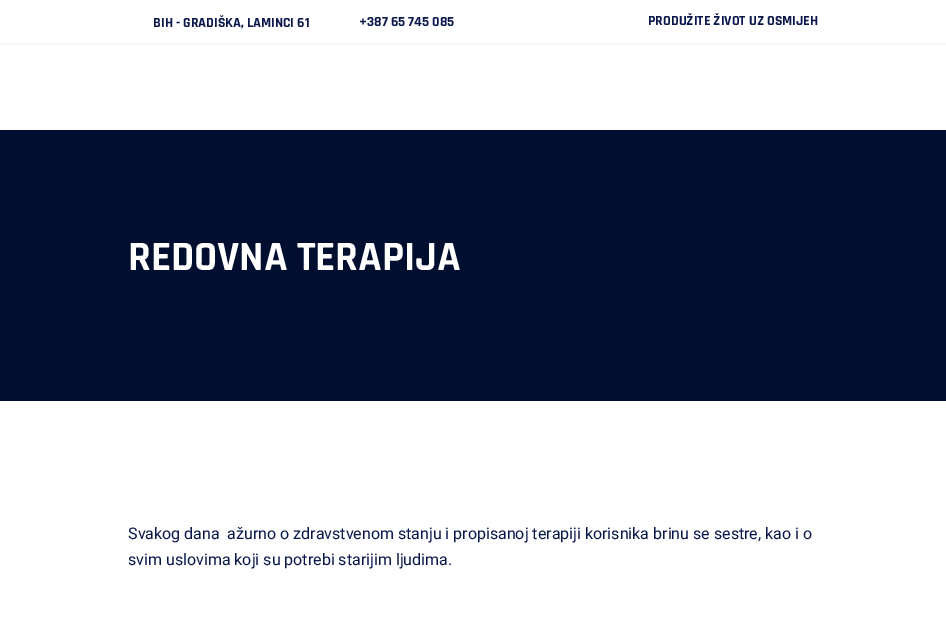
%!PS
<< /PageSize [946 638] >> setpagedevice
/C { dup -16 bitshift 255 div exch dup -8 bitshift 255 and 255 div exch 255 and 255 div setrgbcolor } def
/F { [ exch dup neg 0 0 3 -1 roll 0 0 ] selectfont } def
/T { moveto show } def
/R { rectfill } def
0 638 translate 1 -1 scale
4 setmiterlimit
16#FFFFFF C
0 0 946 638 R
16#F6F7FA C
0 43 946 2 R
/Rajdhani-Bold 14 F
16#0A174C C
(BIH - GRADIŠKA, LAMINCI 61) 153 27 T
(+387 65 745 085) 359 26 T
(PRODUŽITE ŽIVOT UZ OSMIJEH) 648 25 T
16#000E30 C
0 130 946 271 R
/Rajdhani-Bold 42 F
16#FFFFFF C
(REDOVNA TERAPIJA) 128 270 T
/Roboto-Regular 16 F
16#0A174C C
(Svakog dana  ažurno o zdravstvenom stanju i propisanoj terapiji korisnika brinu se sestre, kao i o) 128 539 T
(svim uslovima koji su potrebi starijim ljudima.) 128 565 T
showpage
